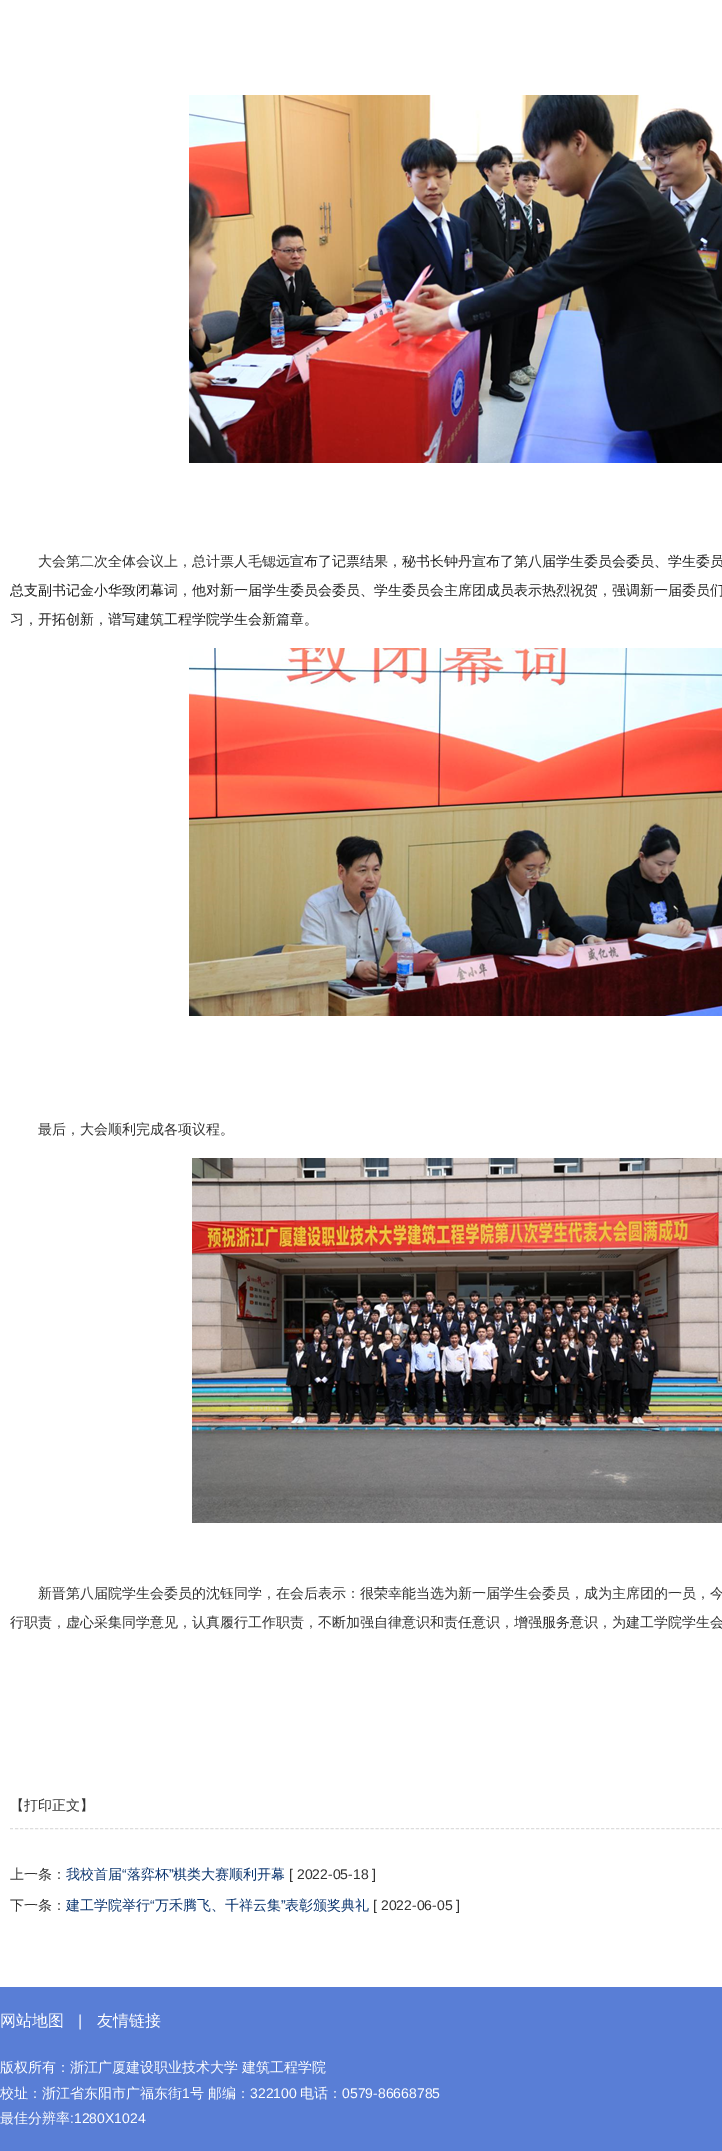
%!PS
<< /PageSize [722 2151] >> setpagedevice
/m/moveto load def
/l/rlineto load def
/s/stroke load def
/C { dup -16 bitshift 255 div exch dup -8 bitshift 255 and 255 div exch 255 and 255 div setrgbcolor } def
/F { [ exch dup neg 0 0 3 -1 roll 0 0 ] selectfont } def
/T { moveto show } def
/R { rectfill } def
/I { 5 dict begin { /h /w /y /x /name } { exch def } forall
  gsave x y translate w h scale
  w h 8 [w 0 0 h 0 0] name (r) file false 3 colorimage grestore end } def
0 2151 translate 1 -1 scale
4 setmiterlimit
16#FFFFFF C
0 0 722 2151 R
(1.rgb) 189 95 533 368 I
/WenQuanYiZenHei-Medium 14 F
16#333333 C
(大会第二次全体会议上，总计票人毛锶远) 38 566 T
16#222222 C
(宣布了记票结果，秘书长钟丹宣布了第八届学生委员会委员、学生委员) 290 566 T
(总支副书记金小华致闭幕词，他对新一届学生委员会委员、学生委员会主席团成员表示热烈祝贺，强调新一届委员们) 10 595 T
(习，开拓创新，谱写建筑工程学院学生会新篇章。) 10 624 T
(2.rgb) 189 648 533 368 I
16#333333 C
(最后，大会顺利完成各项议程。) 38 1134 T
(3.rgb) 192 1158 530 365 I
(新晋第八届院学生会委员的沈钰同学，在会后表示：很荣幸能当选为新一届学生会委员，成为主席团的一员，今) 38 1598 T
(行职责，虚心采集同学意见，认真履行工作职责，不断加强自律意识和责任意识，增强服务意识，为建工学院学生会) 10 1627 T
16#DDDDDD C
[3 2.01] 0 setdash
10 1828.5 m 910 0 l s
16#333333 C
(【打印正文】) 10 1810 T
(上一条：) 10 1879 T
16#0B356F C
(我校首届) 66 1879 T
/LiberationSans-Regular 14 F
(“) 122 1879 T
/WenQuanYiZenHei-Medium 14 F
(落弈杯) 127 1879 T
/LiberationSans-Regular 14 F
(”) 169 1879 T
/WenQuanYiZenHei-Medium 14 F
(棋类大赛顺利开幕) 173 1879 T
/LiberationSans-Regular 14 F
16#333333 C
([ 2022-05-18 ]) 289 1879 T
/WenQuanYiZenHei-Medium 14 F
(下一条：) 10 1910 T
16#0B356F C
(建工学院举行) 66 1910 T
/LiberationSans-Regular 14 F
(“) 150 1910 T
/WenQuanYiZenHei-Medium 14 F
(万禾腾飞、千祥云集) 155 1910 T
/LiberationSans-Regular 14 F
(”) 281 1910 T
/WenQuanYiZenHei-Medium 14 F
(表彰颁奖典礼) 285 1910 T
/LiberationSans-Regular 14 F
16#333333 C
([ 2022-06-05 ]) 373 1910 T
16#597ED6 C
0 1987 722 164 R
/WenQuanYiZenHei-Medium 16 F
16#FFFFFF C
(网站地图) 0 2026 T
/LiberationSans-Regular 16 F
(|) 78 2026 T
/WenQuanYiZenHei-Medium 16 F
(友情链接) 97 2026 T
/WenQuanYiZenHei-Medium 14 F
(版权所有：浙江广厦建设职业技术大学 建筑工程学院) 0 2072 T
(校址：浙江省东阳市广福东街) 0 2098 T
/LiberationSans-Regular 14 F
(1) 182 2098 T
/WenQuanYiZenHei-Medium 14 F
(号 邮编：) 190 2098 T
/LiberationSans-Regular 14 F
(322100) 250 2098 T
/WenQuanYiZenHei-Medium 14 F
(电话：) 300 2098 T
/LiberationSans-Regular 14 F
(0579-86668785) 342 2098 T
/WenQuanYiZenHei-Medium 14 F
(最佳分辨率) 0 2123 T
/LiberationSans-Regular 14 F
(:1280X1024) 70 2123 T
showpage
